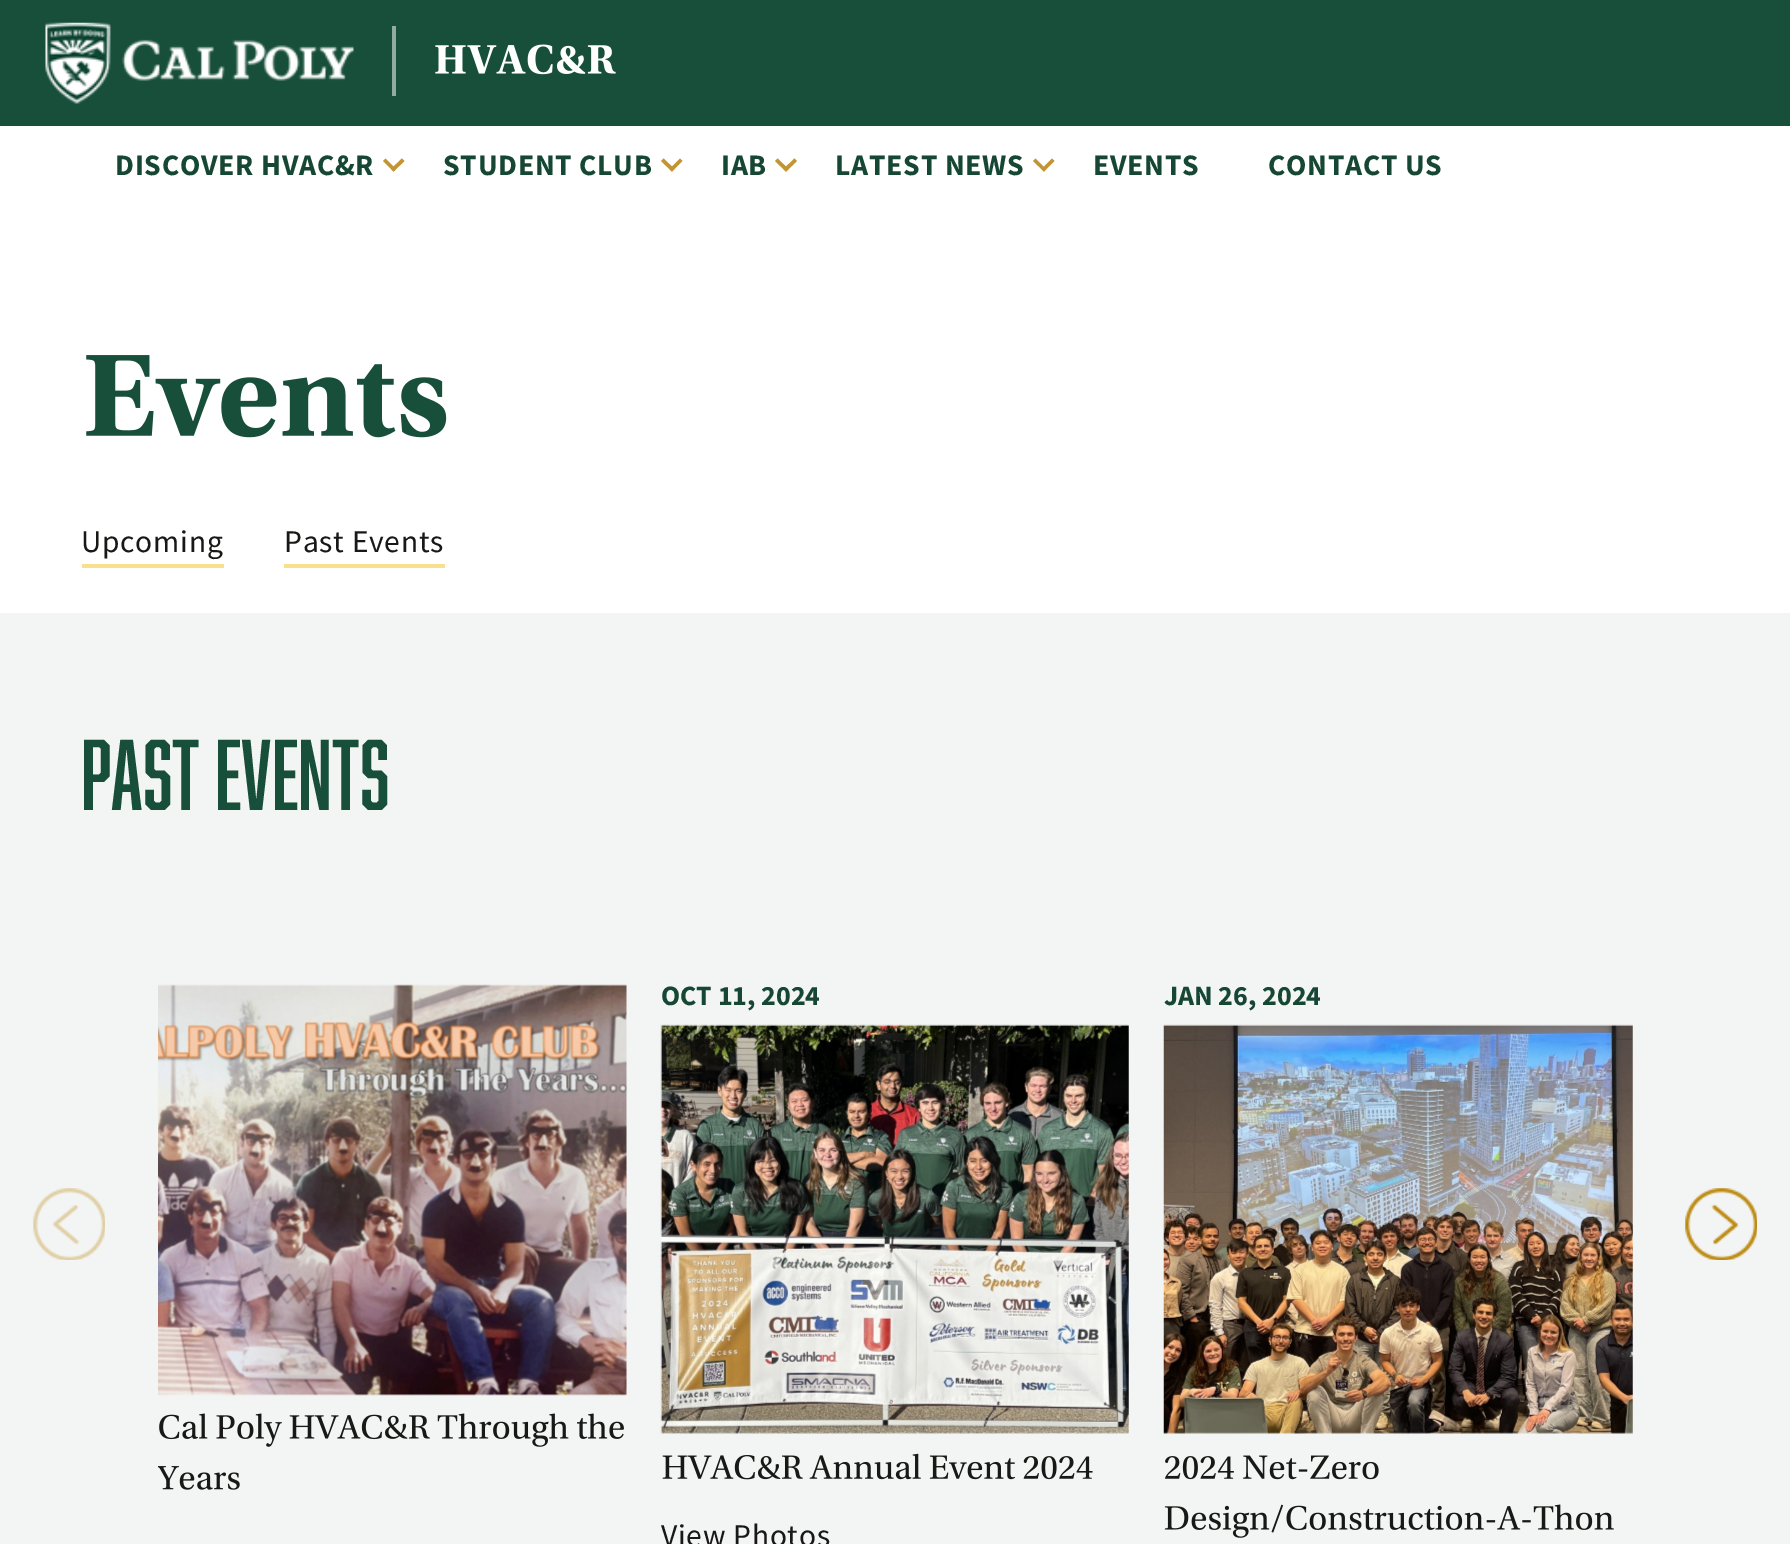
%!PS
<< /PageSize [1790 1544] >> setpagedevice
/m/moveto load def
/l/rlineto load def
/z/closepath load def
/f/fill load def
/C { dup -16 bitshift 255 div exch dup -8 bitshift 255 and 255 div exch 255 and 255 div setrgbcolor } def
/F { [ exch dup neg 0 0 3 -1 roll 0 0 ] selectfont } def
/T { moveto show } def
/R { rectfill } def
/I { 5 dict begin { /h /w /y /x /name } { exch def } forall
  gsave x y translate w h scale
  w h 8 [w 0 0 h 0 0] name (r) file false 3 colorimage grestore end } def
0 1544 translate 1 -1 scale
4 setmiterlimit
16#FFFFFF C
0 0 1790 1544 R
16#174F3A C
0 0 1790 126 R
(1.rgb) 45 22 309 82 I
16#92ACA2 C
392 26 4 70 R
(2.rgb) 435 44 181 31 I
/SourceSansPro-Bold 29.75 F
16#154734 C
115 175 m .75 0 (DISCOVER HVAC&R) ashow
16#C29433 C
391 169 m 11 -10.5 l 2.5 2.5 l -11 10.5 l z f
383 161 m 2.5 -2.5 l 10.5 10.5 l -2.5 2.5 l z f
16#154734 C
443 175 m .75 0 (STUDENT CLUB) ashow
16#C29433 C
669.5 169 m 10.5 -10.5 l 2.5 2.5 l -10.5 10.5 l z f
661 161 m 2.5 -2.5 l 11 10.5 l -2.5 2.5 l z f
16#154734 C
721 175 m .75 0 (IAB) ashow
16#C29433 C
783.5 169 m 11 -10.5 l 2.5 2.5 l -11 10.5 l z f
775 161 m 2.5 -2.5 l 11 10.5 l -2.5 2.5 l z f
16#154734 C
835 175 m .75 0 (LATEST NEWS) ashow
16#C29433 C
1041.5 169 m 10.5 -10.5 l 2.5 2.5 l -10.5 10.5 l z f
1033 161 m 2.5 -2.5 l 10.5 10.5 l -2 2.5 l z f
16#154734 C
1093 175 m .75 0 (EVENTS) ashow
1268 175 m .75 0 (CONTACT US) ashow
(3.rgb) 86 355 361 83 I
/SourceSansPro-Regular 31.5 F
16#181816 C
81 552 m .75 0 (Upcoming) ashow
16#F8E08E C
82 564 142 4 R
16#181816 C
284 552 m .75 0 (Past Events) ashow
16#F8E08E C
284 564 161 4 R
16#F3F4F4 C
0 613 1790 931 R
/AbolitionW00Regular-Regular 92.5 F
16#174F3A C
(PAST EVENTS) 81 810 T
(4.rgb) 33 1188 72 72 I
(5.rgb) 158 984 469 412 I
(6.rgb) 159 1413 465 34 I
(7.rgb) 158 1466 82 24 I
/SourceSansPro-Bold 28 F
16#154734 C
(OCT 11, 2024) 661 1005 T
(8.rgb) 660 1024 469 410 I
(9.rgb) 662 1453 431 27 I
/SourceSansPro-Regular 31.5 F
16#181816 C
661 1546 m .75 0 (View Photos) ashow
/SourceSansPro-Bold 28 F
16#154734 C
(JAN 26, 2024) 1164 1005 T
(10.rgb) 1163 1024 470 410 I
(11.rgb) 1165 1455 214 25 I
(12.rgb) 1164 1504 450 34 I
(13.rgb) 1685 1188 72 72 I
showpage
